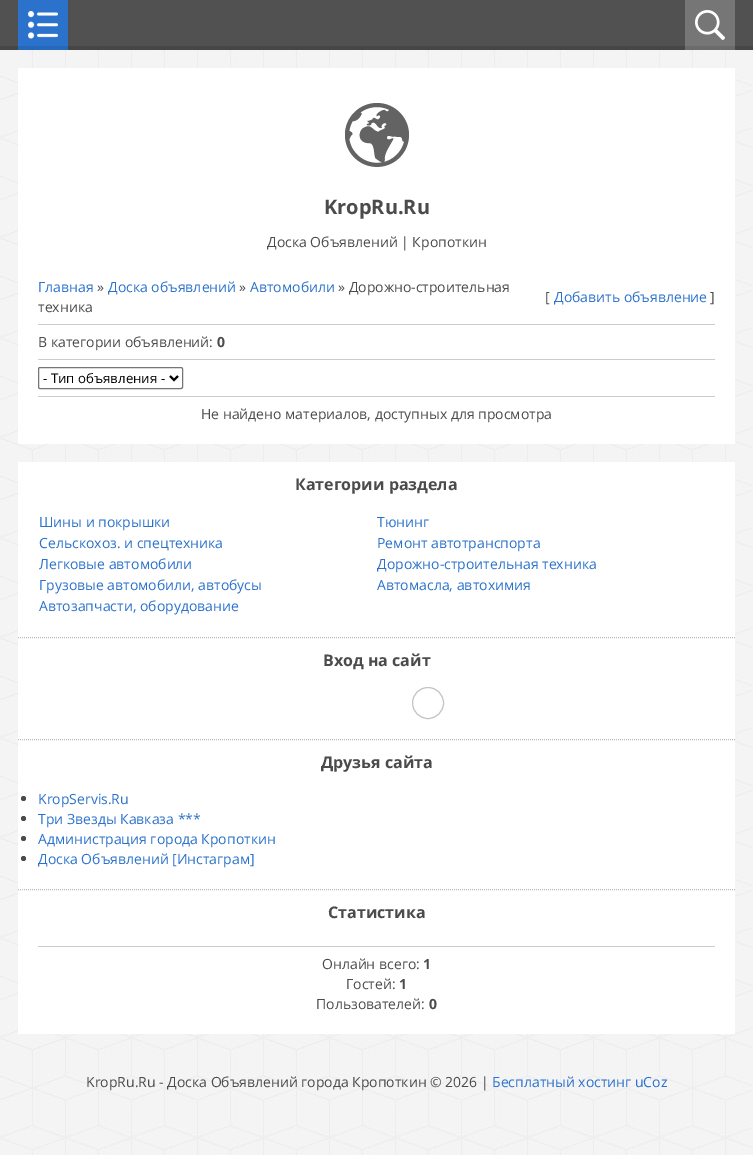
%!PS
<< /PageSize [753 1155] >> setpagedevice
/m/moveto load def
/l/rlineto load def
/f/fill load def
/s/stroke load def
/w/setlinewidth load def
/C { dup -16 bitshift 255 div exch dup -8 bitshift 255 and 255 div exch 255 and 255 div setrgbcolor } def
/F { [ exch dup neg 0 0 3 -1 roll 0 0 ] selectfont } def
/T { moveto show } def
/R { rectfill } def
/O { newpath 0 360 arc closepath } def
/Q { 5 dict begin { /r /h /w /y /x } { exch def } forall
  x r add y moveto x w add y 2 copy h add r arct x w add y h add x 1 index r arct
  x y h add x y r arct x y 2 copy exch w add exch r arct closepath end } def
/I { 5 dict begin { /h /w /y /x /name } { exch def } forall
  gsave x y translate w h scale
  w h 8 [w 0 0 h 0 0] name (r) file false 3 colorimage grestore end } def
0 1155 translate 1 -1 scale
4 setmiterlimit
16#FFFFFF C
0 0 753 1155 R
(1.rgb) 0 50 753 1105 I
16#515151 C
0 0 753 46 R
16#464646 C
0 46 753 4 R
16#2A72CC C
18 0 50 46 R
(2.rgb) 28 11 30 28 I
16#2668BA C
18 46 50 4 R
16#767676 C
685 0 50 46 R
(3.rgb) 695 10 30 30 I
16#6B6B6B C
685 46 50 4 R
16#FFFFFF C
18 68 717 376 R
(4.rgb) 345 103 64 64 I
/OpenSans-Bold 20 F
16#4B4B4B C
(KropRu.Ru) 324 214 T
/OpenSans-Regular 14 F
(Доска Объявлений | Кропоткин) 267 247 T
16#2A72CC C
(Главная) 38 292 T
16#4B4B4B C
(») 97 292 T
16#2A72CC C
(Доска объявлений) 108 292 T
16#4B4B4B C
(») 239 292 T
16#2A72CC C
(Автомобили) 250 292 T
16#4B4B4B C
(» Дорожно-строительная) 338 292 T
(техника) 38 312 T
([) 545 302 T
16#2A72CC C
(Добавить объявление) 554 302 T
16#4B4B4B C
(]) 710 302 T
16#CCCCCC C
38 324 677 1 R
16#4B4B4B C
(В категории объявлений:) 38 347 T
/OpenSans-Bold 14 F
(0) 217 347 T
16#CCCCCC C
38 359 677 1 R
16#767676 C
38.5 367.5 144 21 1.5 Q s
16#000000 C
2 w
170 376 m 4 4 l 4 -4 l s
/OpenSans-Regular 13.25 F
(- Тип объявления -) 43 383 T
16#CCCCCC C
38 396 677 1 R
/OpenSans-Regular 14 F
16#4B4B4B C
(Не найдено материалов, доступных для просмотра) 201 419 T
16#FFFFFF C
18 462 717 572 R
16#BBBBBB C
1 w
[1 1] 0 setdash
18 637.5 m 717 0 l s
/OpenSans-Bold 16 F
16#4B4B4B C
(Категории раздела) 295 490 T
/OpenSans-Regular 14 F
16#2A72CC C
(Шины и покрышки) 39 527 T
(Тюнинг) 377 527 T
(Сельскохоз. и спецтехника) 39 548 T
(Ремонт автотранспорта) 377 548 T
(Легковые автомобили) 39 569 T
(Дорожно-строительная техника) 377 569 T
(Грузовые автомобили, автобусы) 39 590 T
(Автомасла, автохимия) 377 590 T
(Автозапчасти, оборудование) 39 611 T
16#BBBBBB C
18 739.5 m 717 0 l s
/OpenSans-Bold 16 F
16#4B4B4B C
(Вход на сайт) 323 666 T
16#C4C4C4 C
[] 0 setdash
428 703 15.5 O s
16#BBBBBB C
[1 1] 0 setdash
18 889.5 m 717 0 l s
16#4B4B4B C
(Друзья сайта) 321 768 T
23.5 798.5 2.5 O f
/OpenSans-Regular 14 F
16#2A72CC C
(KropServis.Ru) 38 804 T
16#4B4B4B C
23.5 818.5 2.5 O f
16#2A72CC C
(Три Звезды Кавказа ***) 38 824 T
16#4B4B4B C
23.5 838.5 2.5 O f
16#2A72CC C
(Администрация города Кропоткин) 38 844 T
16#4B4B4B C
23.5 858.5 2.5 O f
16#2A72CC C
(Доска Объявлений [Инстаграм]) 38 864 T
/OpenSans-Bold 16 F
16#4B4B4B C
(Статистика) 328 918 T
16#CCCCCC C
38 946 677 1 R
/OpenSans-Regular 14 F
16#4B4B4B C
(Онлайн всего:) 322 969 T
/OpenSans-Bold 14 F
(1) 423 969 T
/OpenSans-Regular 14 F
(Гостей:) 346 989 T
/OpenSans-Bold 14 F
(1) 399 989 T
/OpenSans-Regular 14 F
(Пользователей:) 316 1009 T
/OpenSans-Bold 14 F
(0) 429 1009 T
/OpenSans-Regular 14 F
(KropRu.Ru - Доска Объявлений города Кропоткин © 2026 |) 86 1087 T
16#2A72CC C
(Бесплатный хостинг uCoz) 492 1087 T
showpage
